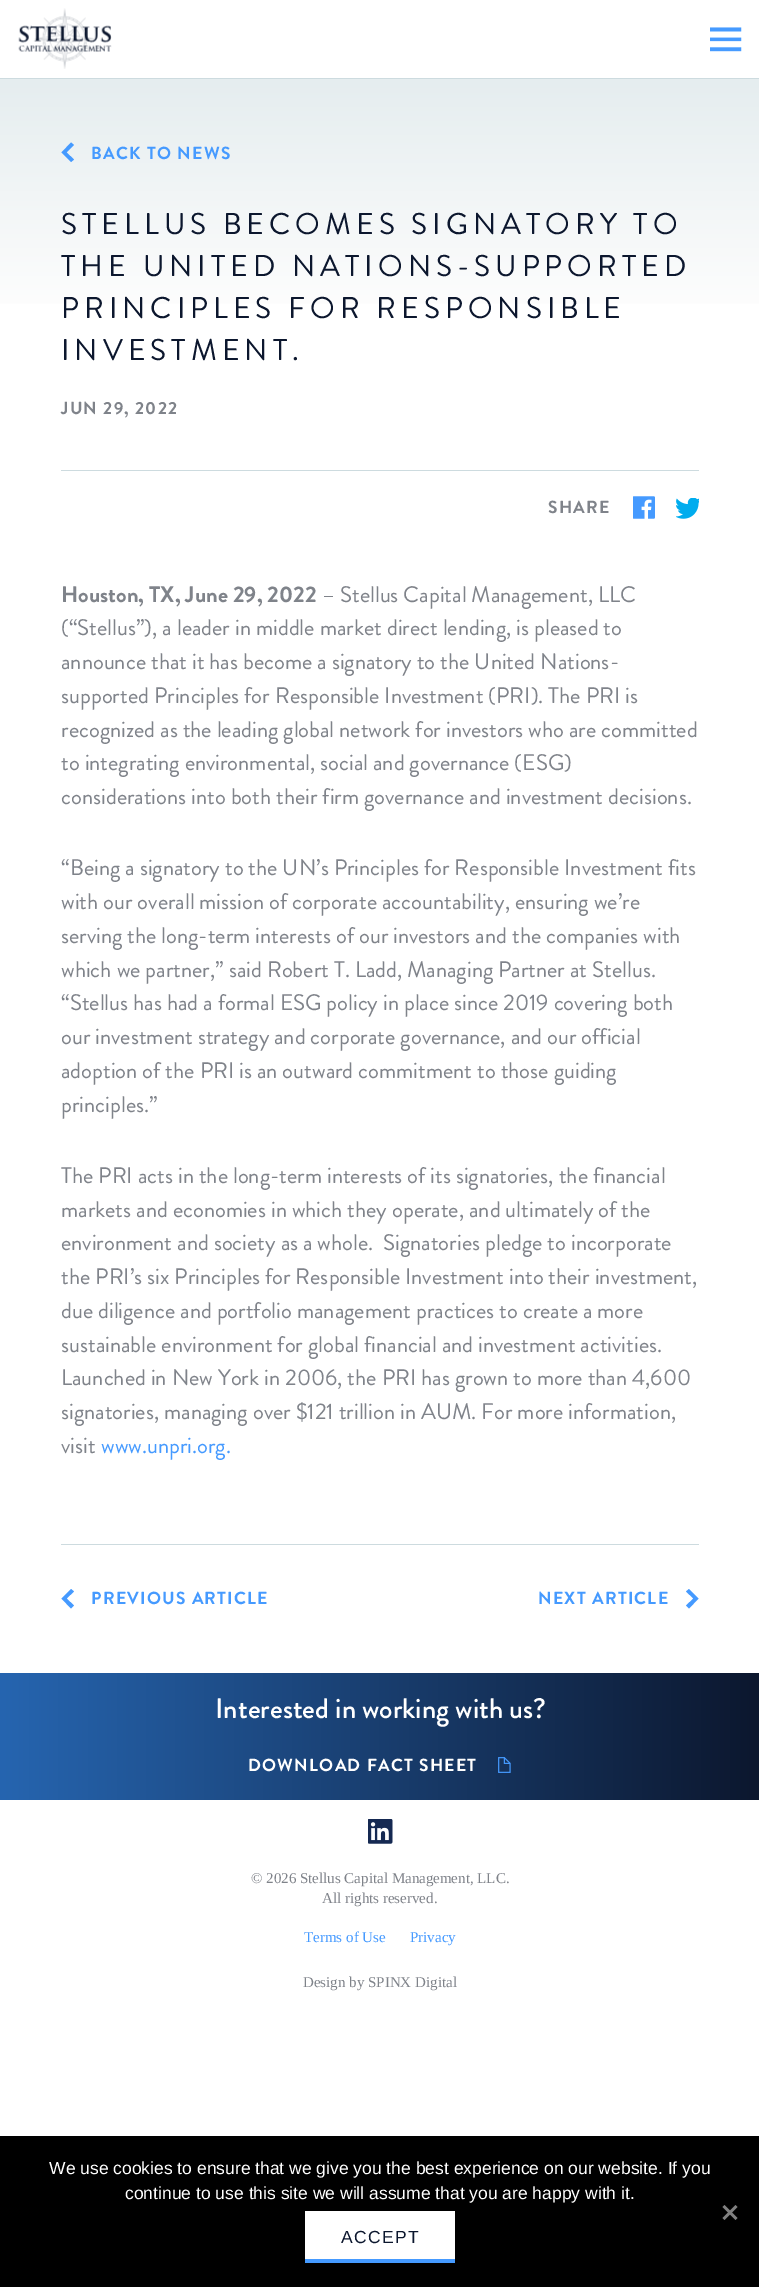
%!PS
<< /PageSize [759 2287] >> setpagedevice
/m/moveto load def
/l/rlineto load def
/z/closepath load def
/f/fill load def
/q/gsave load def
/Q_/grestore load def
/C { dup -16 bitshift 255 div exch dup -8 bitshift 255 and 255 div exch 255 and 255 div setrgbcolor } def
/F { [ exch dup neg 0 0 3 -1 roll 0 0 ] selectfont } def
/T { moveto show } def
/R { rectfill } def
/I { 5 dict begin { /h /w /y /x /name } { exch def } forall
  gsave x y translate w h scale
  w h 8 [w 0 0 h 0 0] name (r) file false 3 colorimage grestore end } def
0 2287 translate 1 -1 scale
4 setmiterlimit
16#FFFFFF C
0 0 759 2287 R
16#CDDBDF C
0 78 759 1 R
(1.rgb) 18 8 94 61 I
(2.rgb) 710 27 32 25 I
q 0 79 m 759 0 l 0 225 l -759 0 l z clip newpath
<< /ShadingType 2 /ColorSpace /DeviceRGB /Coords [380 77 380 328] /Extend [true true] /Function << /FunctionType 2 /Domain [0 1] /C0 [.898 .929 .937] /C1 [1 1 1] /N 1 >> >> shfill Q_
16#459AFF C
74 159.5 m -3 2.5 l -9.5 -9.5 l 9.5 -10 l 3 2.5 l -7.5 7.5 l z f
/BrandonGrotesque-Bold 17.5 F
91 159 m 1.25 0 (BACK TO NEWS) ashow
/BrandonGrotesque-Regular 30 F
16#0C172E C
61 234 m 5 0 (STELLUS BECOMES SIGNATORY TO) ashow
61 276 m 5 0 (THE UNITED NATIONS-SUPPORTED) ashow
61 318 m 5 0 (PRINCIPLES FOR RESPONSIBLE) ashow
61 360 m 5 0 (INVESTMENT.) ashow
16#CDDBDF C
61 470 638 1 R
/BrandonGrotesque-Bold 17.5 F
16#7F838A C
61 414 m 1.25 0 (JUN 29, 2022) ashow
548 513 m 1.25 0 (SHARE) ashow
(3.rgb) 633 496 22 23 I
(4.rgb) 676 498 23 21 I
/BrandonGrotesque-Bold 22.5 F
(Houston, TX, June 29, 2022) 61 602 T
/BrandonGrotesque-Regular 22.5 F
(– Stellus Capital Management, LLC) 322 602 T
(\(“Stellus”\), a leader in middle market direct lending, is pleased to) 61 635 T
(announce that it has become a signatory to the United Nations-) 61 669 T
(supported Principles for Responsible Investment \(PRI\). The PRI is) 61 703 T
(recognized as the leading global network for investors who are committed) 61 737 T
(to integrating environmental, social and governance \(ESG\)) 61 770 T
(considerations into both their firm governance and investment decisions.) 61 804 T
(“Being a signatory to the UN’s Principles for Responsible Investment fits) 61 875 T
(with our overall mission of corporate accountability, ensuring we’re) 61 909 T
(serving the long-term interests of our investors and the companies with) 61 943 T
(which we partner,” said Robert T. Ladd, Managing Partner at Stellus.) 61 977 T
(“Stellus has had a formal ESG policy in place since 2019 covering both) 61 1010 T
(our investment strategy and corporate governance, and our official) 61 1044 T
(adoption of the PRI is an outward commitment to those guiding) 61 1078 T
(principles.”) 61 1112 T
(The PRI acts in the long-term interests of its signatories, the financial) 61 1183 T
(markets and economies in which they operate, and ultimately of the) 61 1217 T
(environment and society as a whole.  Signatories pledge to incorporate) 61 1250 T
(the PRI’s six Principles for Responsible Investment into their investment,) 61 1284 T
(due diligence and portfolio management practices to create a more) 61 1318 T
(sustainable environment for global financial and investment activities.) 61 1352 T
(Launched in New York in 2006, the PRI has grown to more than 4,600) 61 1385 T
(signatories, managing over $121 trillion in AUM. For more information,) 61 1419 T
(visit) 61 1453 T
16#459AFF C
(www.unpri.org.) 101 1453 T
16#CDDBDF C
61 1544 638 1 R
16#459AFF C
74 1605.5 m -3 3 l -9.5 -10 l 9.5 -9.5 l 3 2.5 l -7.5 7 l z f
/BrandonGrotesque-Bold 17.5 F
91 1604 m 1.25 0 (PREVIOUS ARTICLE) ashow
538 1604 m 1.25 0 (NEXT ARTICLE) ashow
686 1605.5 m 3 3 l 9.5 -10 l -9.5 -9.5 l -3 2.5 l 7.5 7 l z f
q 0 1673 m 759 0 l 0 127 l -759 0 l z clip newpath
<< /ShadingType 2 /ColorSpace /DeviceRGB /Coords [0 1736 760 1736] /Extend [true true] /Function << /FunctionType 2 /Domain [0 1] /C0 [.149 .396 .69] /C1 [.047 .09 .18] /N 1 >> >> shfill Q_
/BrandonGrotesque-Medium 28.25 F
16#FFFFFF C
(Interested in working with us?) 215 1718 T
/BrandonGrotesque-Bold 17.5 F
248 1771 m 1.25 0 (DOWNLOAD FACT SHEET) ashow
(5.rgb) 498 1757 13 16 I
(6.rgb) 368 1819 25 25 I
/LiberationSerif-Regular 15 F
16#7F838A C
(© 2026 Stellus Capital Management, LLC.) 251 1883 T
(All rights reserved.) 322 1903 T
16#459AFF C
(Terms of Use) 304 1942 T
(Privacy) 410 1942 T
16#7F838A C
(Design by SPINX Digital) 303 1987 T
16#000000 C
0 2136 759 151 R
/LiberationSans-Regular 17.5 F
16#FFFFFF C
(We use cookies to ensure that we give you the best experience on our website. If you) 49 2174 T
(continue to use this site we will assume that you are happy with it.) 125 2199 T
16#808080 C
735.5 2205 m 2 2 l -13 13 l -2 -2 l z f
722.5 2207 m 2 -2 l 13 13 l -2 2 l z f
16#FFFFFF C
305 2211 150 48 R
16#459AFF C
305 2259 150 4 R
16#0C172E C
341 2243 m 1.25 0 (ACCEPT) ashow
showpage
